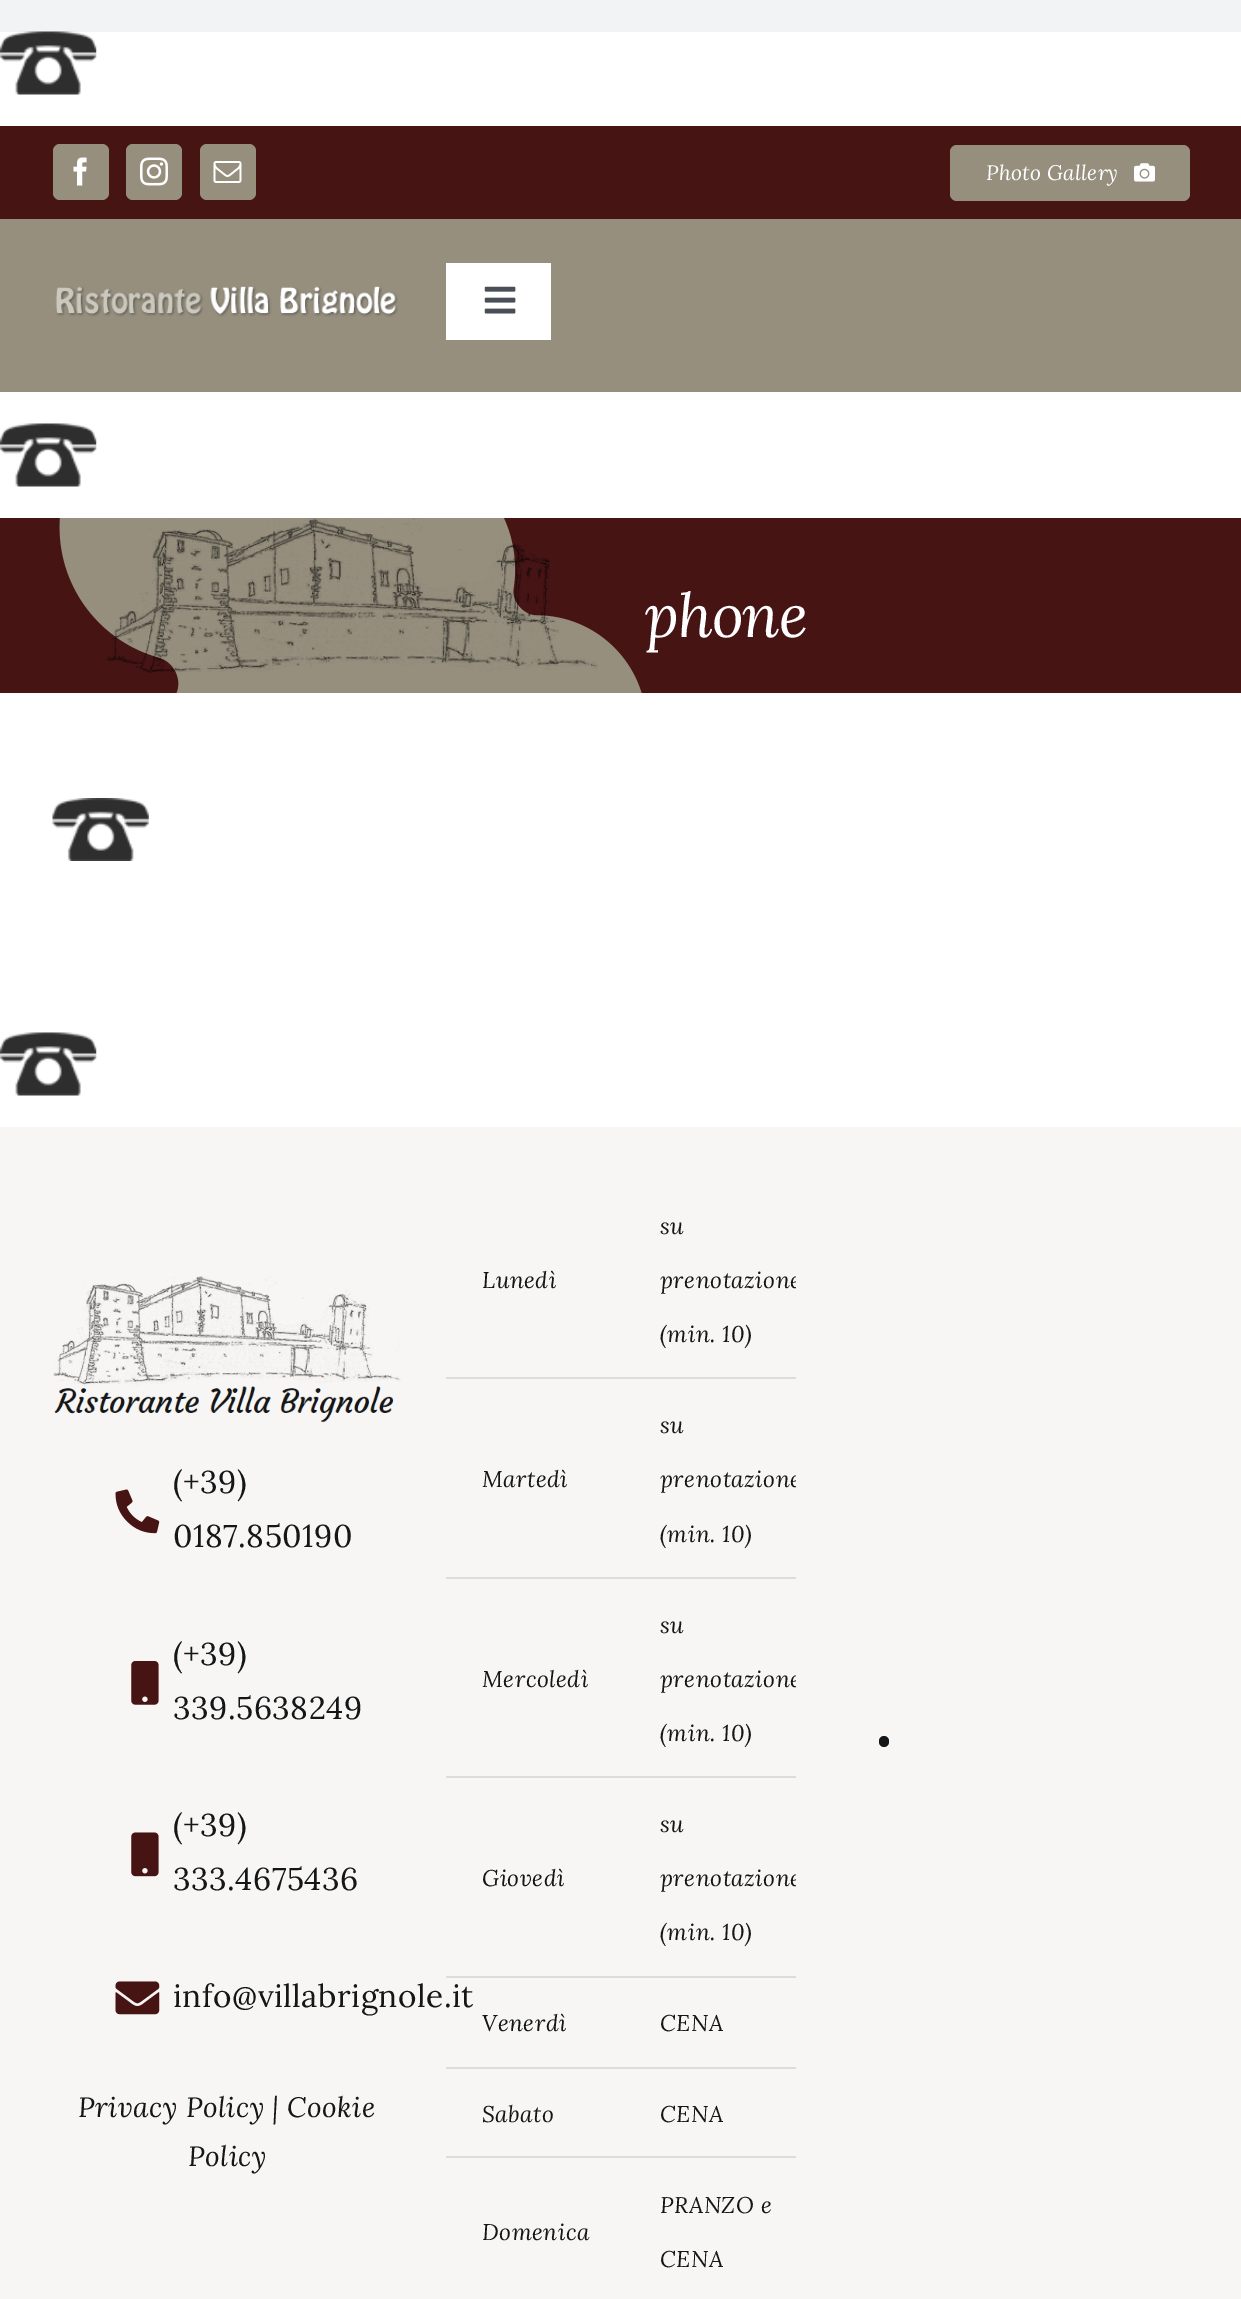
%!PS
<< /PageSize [1241 2299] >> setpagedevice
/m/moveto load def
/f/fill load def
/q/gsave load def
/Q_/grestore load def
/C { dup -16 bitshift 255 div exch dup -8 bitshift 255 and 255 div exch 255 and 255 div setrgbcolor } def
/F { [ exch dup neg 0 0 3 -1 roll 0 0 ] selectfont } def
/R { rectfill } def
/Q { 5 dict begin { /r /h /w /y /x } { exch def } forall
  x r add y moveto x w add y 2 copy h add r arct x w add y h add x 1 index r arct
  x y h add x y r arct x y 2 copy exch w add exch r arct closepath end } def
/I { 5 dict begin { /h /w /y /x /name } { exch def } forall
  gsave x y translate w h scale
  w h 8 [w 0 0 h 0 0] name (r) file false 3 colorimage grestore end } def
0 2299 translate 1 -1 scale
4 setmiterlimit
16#F2F3F5 C
0 0 1241 2299 R
16#FFFFFF C
0 32 1241 1095 R
(1.rgb) 0 31 97 64 I
16#471414 C
0 126 1241 93 R
16#968F7E C
53 144 56 56 7 Q f
(2.rgb) 73 157 14 29 I
126 144 56 56 7 Q f
(3.rgb) 140 157 28 29 I
200 144 56 56 7 Q f
(4.rgb) 213 161 29 22 I
950 145 240 56 7 Q f
/Lora-Italic 21 F
16#FFFFFF C
986 180 m .25 0 (Photo Gallery) ashow
(5.rgb) 1134 163 21 19 I
16#968F7E C
0 219 1241 173 R
(6.rgb) 55 286 343 31 I
16#FFFFFF C
446 263 105 77 R
(7.rgb) 484 286 32 28 I
(8.rgb) 0 423 97 64 I
16#471414 C
0 518 1241 175 R
(9.rgb) 59 518 583 175 I
(10.rgb) 106 518 492 155 I
/Lora-Italic 61 F
16#FFFFFF C
644 637 m -1 0 (phone) ashow
(11.rgb) 52 798 97 63 I
(8.rgb) 0 1032 97 64 I
16#F8F6F5 C
0 1127 1241 1172 R
(12.rgb) 53 1276 348 147 I
(13.rgb) 115 1489 45 45 I
/Lora-Regular 31.5 F
16#141617 C
173 1493 m .5 0 (\(+39\)) ashow
173 1547 m .5 0 (0187.850190) ashow
(14.rgb) 131 1661 28 44 I
173 1665 m .5 0 (\(+39\)) ashow
173 1719 m .5 0 (339.5638249) ashow
(15.rgb) 131 1832 28 45 I
173 1836 m .5 0 (\(+39\)) ashow
173 1890 m .5 0 (333.4675436) ashow
(16.rgb) 115 1981 45 34 I
173 2007 m .5 0 (info@villabrignole.it) ashow
/Lora-Italic 28 F
78 2117 m .5 0 (Privacy Policy | Cookie) ashow
188 2166 m .5 0 (Policy) ashow
/Lora-Italic 22.75 F
482 1288 m .5 0 (Lunedì) ashow
16#DCDCDC C
446 1377 350 2 R
16#141617 C
660 1234 m .5 0 (su) ashow
q
446 1180 350 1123 rectclip
660 1288 m .5 0 (prenotazione) ashow
Q_
660 1342 m .5 0 (\(min. 10\)) ashow
482 1487 m .5 0 (Martedì) ashow
16#DCDCDC C
446 1577 350 2 R
16#141617 C
660 1433 m .5 0 (su) ashow
q
446 1180 350 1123 rectclip
660 1487 m .5 0 (prenotazione) ashow
Q_
660 1542 m .5 0 (\(min. 10\)) ashow
482 1687 m .5 0 (Mercoledì) ashow
16#DCDCDC C
446 1776 350 2 R
16#141617 C
660 1633 m .5 0 (su) ashow
q
446 1180 350 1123 rectclip
660 1687 m .5 0 (prenotazione) ashow
Q_
660 1741 m .5 0 (\(min. 10\)) ashow
482 1886 m .5 0 (Giovedì) ashow
16#DCDCDC C
446 1976 350 2 R
16#141617 C
660 1832 m .5 0 (su) ashow
q
446 1180 350 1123 rectclip
660 1886 m .5 0 (prenotazione) ashow
Q_
660 1940 m .5 0 (\(min. 10\)) ashow
482 2031 m .5 0 (Venerdì) ashow
16#DCDCDC C
446 2067 350 2 R
16#141617 C
660 2031 m .5 0 (CENA) ashow
482 2122 m .5 0 (Sabato) ashow
16#DCDCDC C
446 2156 350 2 R
16#141617 C
660 2122 m .5 0 (CENA) ashow
482 2240 m .5 0 (Domenica) ashow
660 2213 m .5 0 (PRANZO e) ashow
660 2267 m .5 0 (CENA) ashow
879 1736 10 11 5 Q f
showpage
